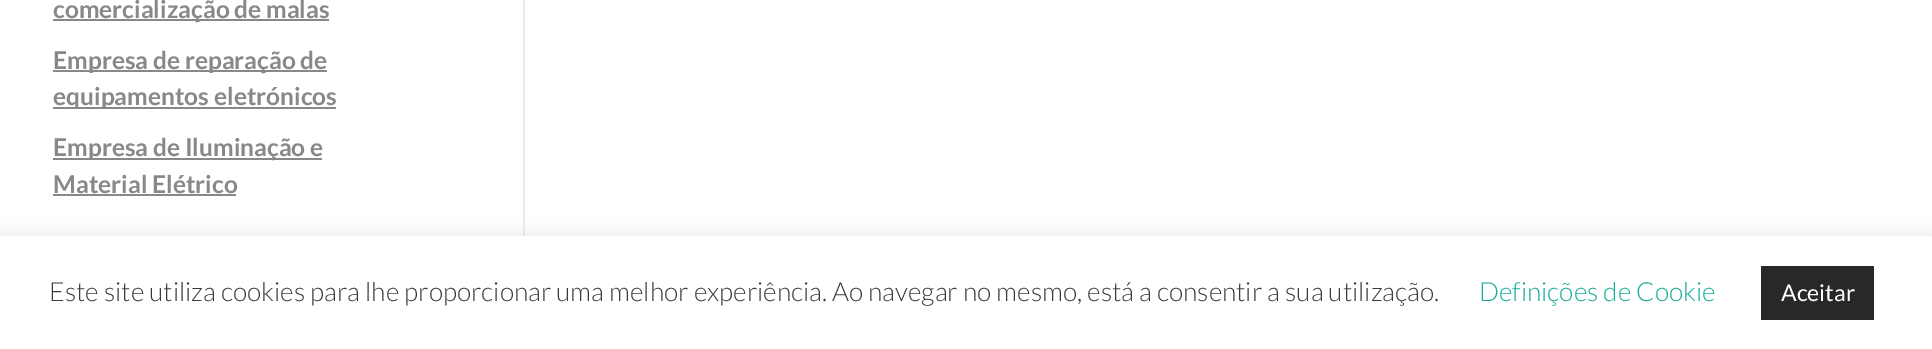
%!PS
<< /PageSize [1932 349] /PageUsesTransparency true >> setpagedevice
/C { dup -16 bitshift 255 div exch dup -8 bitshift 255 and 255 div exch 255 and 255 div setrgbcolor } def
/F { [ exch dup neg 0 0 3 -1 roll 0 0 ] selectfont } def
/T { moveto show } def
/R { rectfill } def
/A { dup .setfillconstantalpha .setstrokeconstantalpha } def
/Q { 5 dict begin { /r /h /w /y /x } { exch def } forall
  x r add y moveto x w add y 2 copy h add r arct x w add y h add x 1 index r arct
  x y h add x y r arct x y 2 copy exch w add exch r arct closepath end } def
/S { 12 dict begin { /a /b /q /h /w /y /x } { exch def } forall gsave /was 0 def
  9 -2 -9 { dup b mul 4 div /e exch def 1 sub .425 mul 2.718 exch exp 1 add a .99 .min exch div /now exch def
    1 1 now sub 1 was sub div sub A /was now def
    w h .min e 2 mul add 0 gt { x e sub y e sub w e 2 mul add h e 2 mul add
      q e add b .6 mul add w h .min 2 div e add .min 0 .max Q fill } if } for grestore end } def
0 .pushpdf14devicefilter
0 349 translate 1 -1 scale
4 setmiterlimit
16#FFFFFF C
0 0 1932 349 R
16#EAEAEA C
523 0 2 236 R
16#888888 C
53 19 276 2 R
/Lato-Bold 24.5 F
(comercialização de malas) 53 18 T
53 70 274 2 R
(Empresa de reparação de) 53 69 T
53 107 283 2 R
(equipamentos eletrónicos) 53 105 T
53 158 269 2 R
(Empresa de Iluminação e) 53 156 T
(Material Elétrico) 53 193 T
53 194 183 2 R
16#ACABAB C
0 235 1932 113 0 9 .3 S
16#FFFFFF C
0 236 1932 113 R
/Lato-Light 26.25 F
16#3A3A3A C
(Este site utiliza cookies para lhe proporcionar uma melhor experiência. Ao navegar no mesmo, está a consentir a sua utilização.) 49 301 T
16#16AA97 C
(Definições de Cookie) 1479 301 T
16#282828 C
1761 266 113 54 R
/Lato-Regular 23 F
16#FFFFFF C
(Aceitar) 1781 301 T
.poppdf14devicefilter showpage
